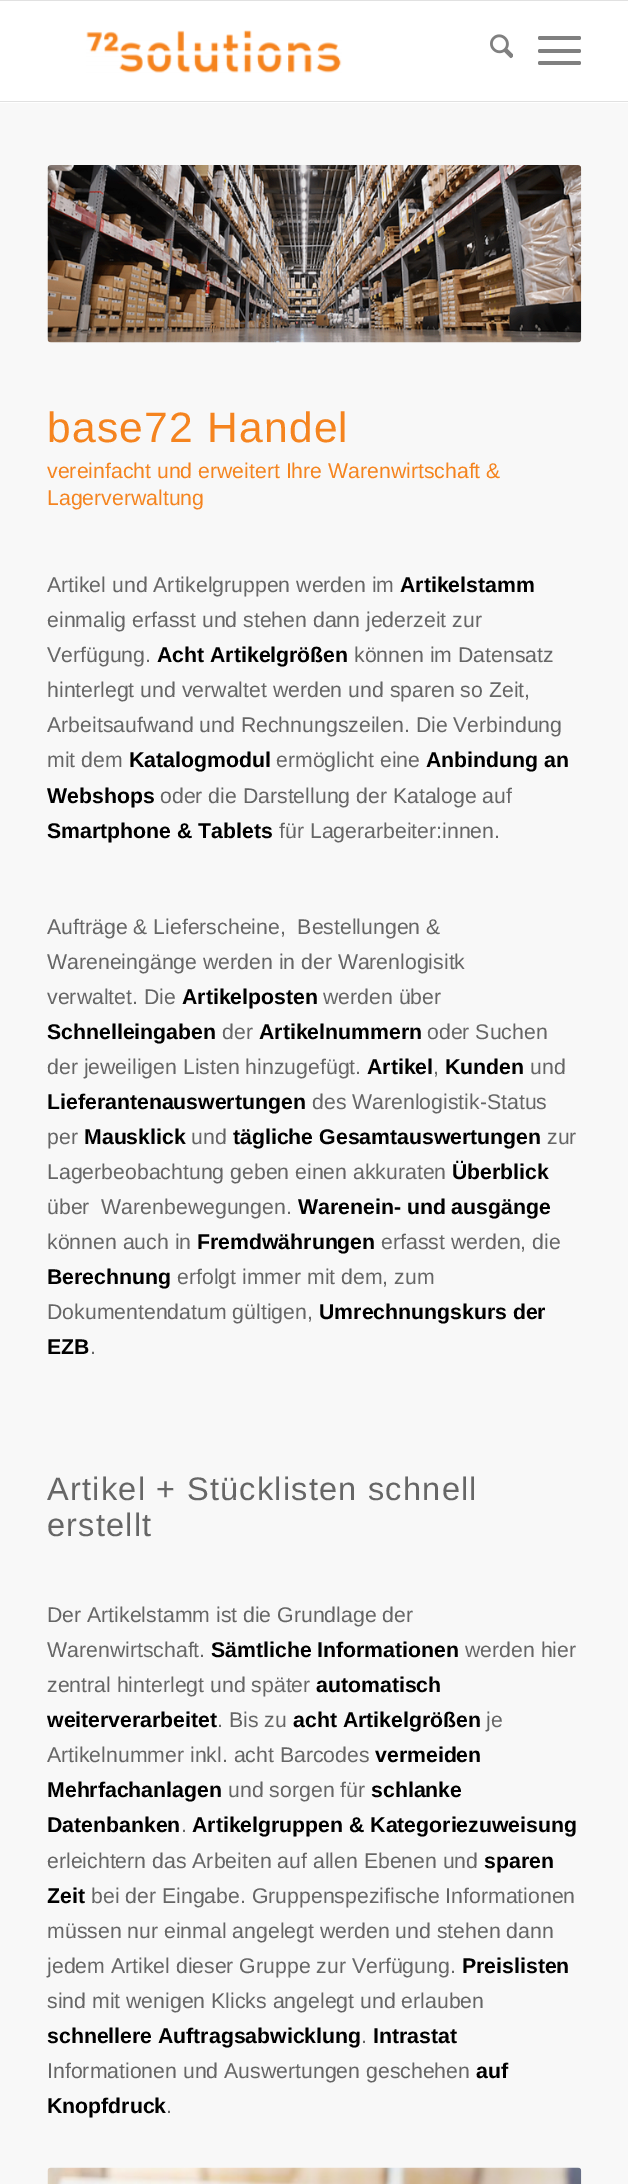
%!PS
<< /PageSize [628 2184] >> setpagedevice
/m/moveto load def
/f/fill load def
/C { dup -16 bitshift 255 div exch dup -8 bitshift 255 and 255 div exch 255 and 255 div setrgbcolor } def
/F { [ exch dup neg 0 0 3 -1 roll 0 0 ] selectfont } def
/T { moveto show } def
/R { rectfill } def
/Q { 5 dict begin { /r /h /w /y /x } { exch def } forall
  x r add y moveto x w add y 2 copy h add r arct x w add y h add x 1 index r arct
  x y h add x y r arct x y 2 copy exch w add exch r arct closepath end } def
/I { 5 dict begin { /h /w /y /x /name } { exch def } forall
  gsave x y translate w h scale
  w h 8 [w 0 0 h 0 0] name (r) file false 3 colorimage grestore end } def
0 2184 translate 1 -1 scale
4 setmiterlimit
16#F8F8F8 C
0 0 628 2184 R
16#E1E1E1 C
0 0 628 1 R
16#FFFFFF C
0 1 628 102 R
16#E1E1E1 C
0 101 628 1 R
(1.rgb) 86 30 256 43 I
(2.rgb) 490 34 23 25 I
16#808080 C
538 49 43 4 2 Q f
538 36 43 4 2 Q f
538 61 43 4 2 Q f
(3.rgb) 47 165 535 178 I
/LiberationSans-Regular 42.5 F
16#F5841F C
47 442 m 1.25 0 (base72 Handel) ashow
/LiberationSans-Regular 21.25 F
(vereinfacht und erweitert Ihre Warenwirtschaft &) 47 478 T
(Lagerverwaltung) 47 505 T
16#666666 C
(Artikel und Artikelgruppen werden im) 47 592 T
/LiberationSans-Bold 21.25 F
16#000000 C
(Artikelstamm) 400 592 T
/LiberationSans-Regular 21.25 F
16#666666 C
(einmalig erfasst und stehen dann jederzeit zur) 47 627 T
(Verfügung.) 47 662 T
/LiberationSans-Bold 21.25 F
16#000000 C
(Acht Artikelgrößen) 157 662 T
/LiberationSans-Regular 21.25 F
16#666666 C
(können im Datensatz) 354 662 T
(hinterlegt und verwaltet werden und sparen so Zeit,) 47 697 T
(Arbeitsaufwand und Rechnungszeilen. Die Verbindung) 47 732 T
(mit dem) 47 767 T
/LiberationSans-Bold 21.25 F
16#000000 C
(Katalogmodul) 129 767 T
/LiberationSans-Regular 21.25 F
16#666666 C
(ermöglicht eine) 276 767 T
/LiberationSans-Bold 21.25 F
16#000000 C
(Anbindung an) 426 767 T
(Webshops) 47 803 T
/LiberationSans-Regular 21.25 F
16#666666 C
(oder die Darstellung der Kataloge auf) 160 803 T
/LiberationSans-Bold 21.25 F
16#000000 C
(Smartphone & Tablets) 47 838 T
/LiberationSans-Regular 21.25 F
16#666666 C
(für Lagerarbeiter:innen.) 279 838 T
(Aufträge & Lieferscheine,  Bestellungen &) 47 934 T
(Wareneingänge werden in der Warenlogisitk) 47 969 T
(verwaltet. Die) 47 1004 T
/LiberationSans-Bold 21.25 F
16#000000 C
(Artikelposten) 182 1004 T
/LiberationSans-Regular 21.25 F
16#666666 C
(werden über) 323 1004 T
/LiberationSans-Bold 21.25 F
16#000000 C
(Schnelleingaben) 47 1039 T
/LiberationSans-Regular 21.25 F
16#666666 C
(der) 222 1039 T
/LiberationSans-Bold 21.25 F
16#000000 C
(Artikelnummern) 259 1039 T
/LiberationSans-Regular 21.25 F
16#666666 C
(oder Suchen) 427 1039 T
(der jeweiligen Listen hinzugefügt.) 47 1074 T
/LiberationSans-Bold 21.25 F
16#000000 C
(Artikel) 367 1074 T
/LiberationSans-Regular 21.25 F
16#666666 C
(,) 433 1074 T
/LiberationSans-Bold 21.25 F
16#000000 C
(Kunden) 445 1074 T
/LiberationSans-Regular 21.25 F
16#666666 C
(und) 530 1074 T
/LiberationSans-Bold 21.25 F
16#000000 C
(Lieferantenauswertungen) 47 1109 T
/LiberationSans-Regular 21.25 F
16#666666 C
(des Warenlogistik-Status) 312 1109 T
(per) 47 1144 T
/LiberationSans-Bold 21.25 F
16#000000 C
(Mausklick) 84 1144 T
/LiberationSans-Regular 21.25 F
16#666666 C
(und) 191 1144 T
/LiberationSans-Bold 21.25 F
16#000000 C
(tägliche Gesamtauswertungen) 233 1144 T
/LiberationSans-Regular 21.25 F
16#666666 C
(zur) 547 1144 T
(Lagerbeobachtung geben einen akkuraten) 47 1179 T
/LiberationSans-Bold 21.25 F
16#000000 C
(Überblick) 452 1179 T
/LiberationSans-Regular 21.25 F
16#666666 C
(über  Warenbewegungen.) 47 1214 T
/LiberationSans-Bold 21.25 F
16#000000 C
(Warenein- und ausgänge) 298 1214 T
/LiberationSans-Regular 21.25 F
16#666666 C
(können auch in) 47 1249 T
/LiberationSans-Bold 21.25 F
16#000000 C
(Fremdwährungen) 197 1249 T
/LiberationSans-Regular 21.25 F
16#666666 C
(erfasst werden, die) 381 1249 T
/LiberationSans-Bold 21.25 F
16#000000 C
(Berechnung) 47 1284 T
/LiberationSans-Regular 21.25 F
16#666666 C
(erfolgt immer mit dem, zum) 177 1284 T
(Dokumentendatum gültigen,) 47 1319 T
/LiberationSans-Bold 21.25 F
16#000000 C
(Umrechnungskurs der) 319 1319 T
(EZB) 47 1354 T
/LiberationSans-Regular 21.25 F
16#666666 C
(.) 90 1354 T
/LiberationSans-Regular 32.5 F
47 1500 m 1.25 0 (Artikel + Stücklisten schnell) ashow
47 1536 m 1.25 0 (erstellt) ashow
/LiberationSans-Regular 21.25 F
(Der Artikelstamm ist die Grundlage der) 47 1622 T
(Warenwirtschaft.) 47 1657 T
/LiberationSans-Bold 21.25 F
16#000000 C
(Sämtliche Informationen) 211 1657 T
/LiberationSans-Regular 21.25 F
16#666666 C
(werden hier) 465 1657 T
(zentral hinterlegt und später) 47 1692 T
/LiberationSans-Bold 21.25 F
16#000000 C
(automatisch) 316 1692 T
(weiterverarbeitet) 47 1727 T
/LiberationSans-Regular 21.25 F
16#666666 C
(. Bis zu) 217 1727 T
/LiberationSans-Bold 21.25 F
16#000000 C
(acht Artikelgrößen) 293 1727 T
/LiberationSans-Regular 21.25 F
16#666666 C
(je) 486 1727 T
(Artikelnummer inkl. acht Barcodes) 47 1762 T
/LiberationSans-Bold 21.25 F
16#000000 C
(vermeiden) 375 1762 T
(Mehrfachanlagen) 47 1797 T
/LiberationSans-Regular 21.25 F
16#666666 C
(und sorgen für) 228 1797 T
/LiberationSans-Bold 21.25 F
16#000000 C
(schlanke) 371 1797 T
(Datenbanken) 47 1832 T
/LiberationSans-Regular 21.25 F
16#666666 C
(.) 181 1832 T
/LiberationSans-Bold 21.25 F
16#000000 C
(Artikelgruppen & Kategoriezuweisung) 192 1832 T
/LiberationSans-Regular 21.25 F
16#666666 C
(erleichtern das Arbeiten auf allen Ebenen und) 47 1868 T
/LiberationSans-Bold 21.25 F
16#000000 C
(sparen) 484 1868 T
(Zeit) 47 1903 T
/LiberationSans-Regular 21.25 F
16#666666 C
(bei der Eingabe. Gruppenspezifische Informationen) 91 1903 T
(müssen nur einmal angelegt werden und stehen dann) 47 1938 T
(jedem Artikel dieser Gruppe zur Verfügung.) 47 1973 T
/LiberationSans-Bold 21.25 F
16#000000 C
(Preislisten) 462 1973 T
/LiberationSans-Regular 21.25 F
16#666666 C
(sind mit wenigen Klicks angelegt und erlauben) 47 2008 T
/LiberationSans-Bold 21.25 F
16#000000 C
(schnellere Auftragsabwicklung) 47 2043 T
/LiberationSans-Regular 21.25 F
16#666666 C
(.) 361 2043 T
/LiberationSans-Bold 21.25 F
16#000000 C
(Intrastat) 373 2043 T
/LiberationSans-Regular 21.25 F
16#666666 C
(Informationen und Auswertungen geschehen) 47 2078 T
/LiberationSans-Bold 21.25 F
16#000000 C
(auf) 476 2078 T
(Knopfdruck) 47 2113 T
/LiberationSans-Regular 21.25 F
16#666666 C
(.) 166 2113 T
(4.rgb) 47 2167 535 17 I
showpage
